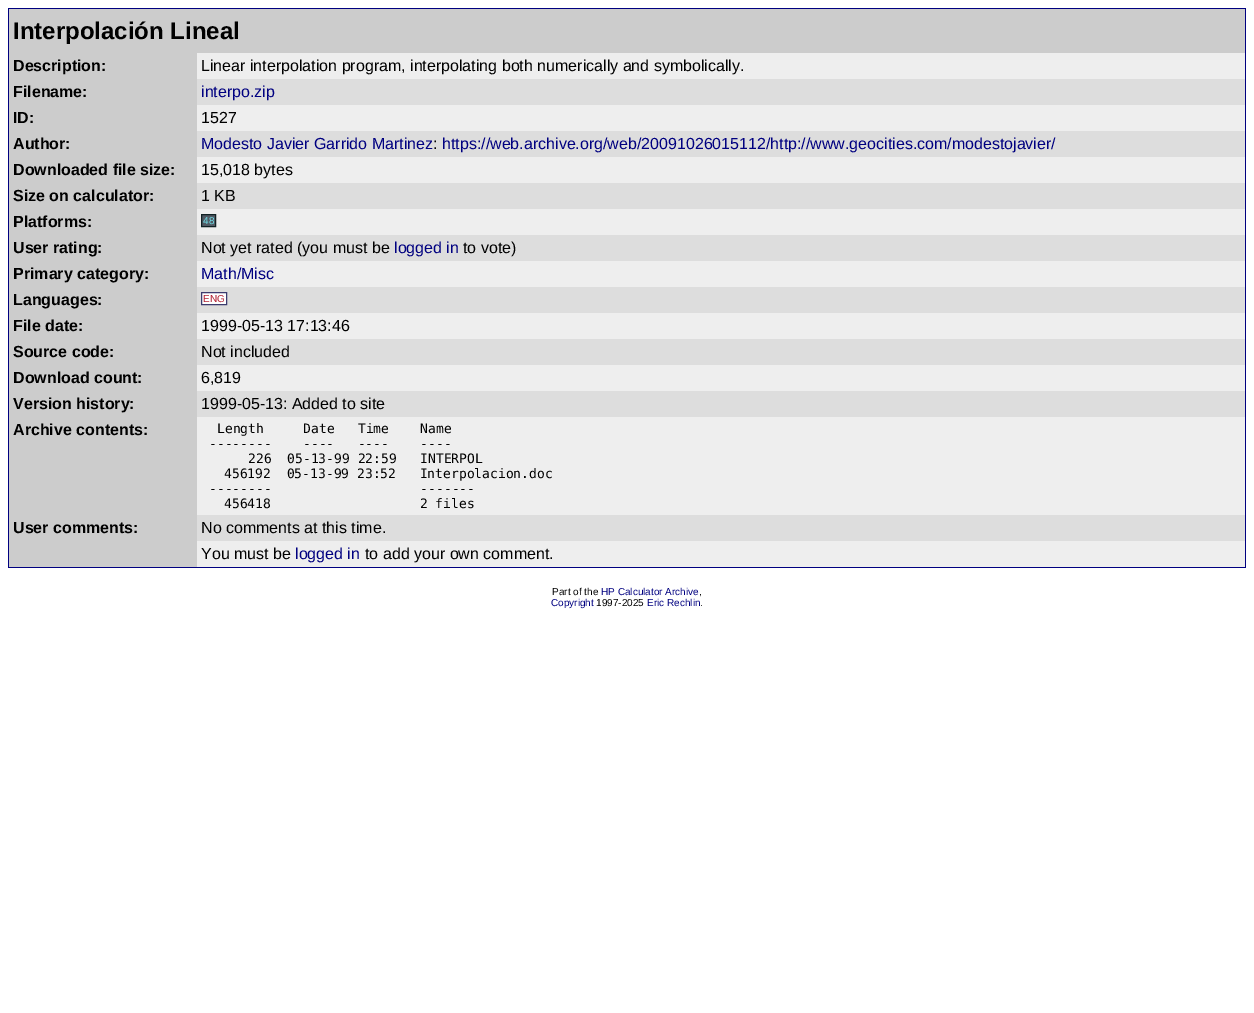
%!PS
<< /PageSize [1254 1013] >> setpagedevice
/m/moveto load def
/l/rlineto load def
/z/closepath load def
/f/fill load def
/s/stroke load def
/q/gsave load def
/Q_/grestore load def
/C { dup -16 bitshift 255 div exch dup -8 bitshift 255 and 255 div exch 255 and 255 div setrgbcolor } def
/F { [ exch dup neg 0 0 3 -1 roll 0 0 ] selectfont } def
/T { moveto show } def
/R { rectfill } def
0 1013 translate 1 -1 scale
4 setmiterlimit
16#FFFFFF C
0 0 1254 1013 R
16#000080 C
8 8 1238 560 R
16#EEEEEE C
197 53 1048 514 R
16#CCCCCC C
9 9 1236 44 R
/LiberationSans-Bold 24 F
16#000000 C
(Interpolación Lineal) 13 39 T
16#CCCCCC C
9 53 188 514 R
/LiberationSans-Bold 16 F
16#000000 C
(Description:) 13 71 T
/LiberationSans-Regular 16 F
(Linear interpolation program, interpolating both numerically and symbolically.) 201 71 T
/LiberationSans-Bold 16 F
(Filename:) 13 97 T
16#DDDDDD C
197 79 1048 26 R
/LiberationSans-Regular 16 F
16#000080 C
(interpo.zip) 201 97 T
/LiberationSans-Bold 16 F
16#000000 C
(ID:) 13 123 T
/LiberationSans-Regular 16 F
(1527) 201 123 T
/LiberationSans-Bold 16 F
(Author:) 13 149 T
16#DDDDDD C
197 131 1048 26 R
/LiberationSans-Regular 16 F
16#000080 C
(Modesto Javier Garrido Martinez) 201 149 T
16#000000 C
(:) 433 149 T
16#000080 C
(https://web.archive.org/web/20091026015112/http://www.geocities.com/modestojavier/) 442 149 T
/LiberationSans-Bold 16 F
16#000000 C
(Downloaded file size:) 13 175 T
/LiberationSans-Regular 16 F
(15,018 bytes) 201 175 T
/LiberationSans-Bold 16 F
(Size on calculator:) 13 201 T
16#DDDDDD C
197 183 1048 26 R
/LiberationSans-Regular 16 F
16#000000 C
(1 KB) 201 201 T
/LiberationSans-Bold 16 F
(Platforms:) 13 227 T
16#515A64 C
201.5 214.5 m 14 0 l 0 12 l -14 0 l z q f Q_
16#112124 C
s
/LiberationSans-Regular 10 F
16#6FE0EA C
(48) 203 224 T
/LiberationSans-Bold 16 F
16#000000 C
(User rating:) 13 253 T
16#DDDDDD C
197 235 1048 26 R
/LiberationSans-Regular 16 F
16#000000 C
(Not yet rated \(you must be) 201 253 T
16#000080 C
(logged in) 394 253 T
16#000000 C
(to vote\)) 463 253 T
/LiberationSans-Bold 16 F
(Primary category:) 13 279 T
/LiberationSans-Regular 16 F
16#000080 C
(Math/Misc) 201 279 T
/LiberationSans-Bold 16 F
16#000000 C
(Languages:) 13 305 T
16#DDDDDD C
197 287 1048 26 R
16#FFFFFF C
201.5 292.5 m 25 0 l 0 12 l -25 0 l z q f Q_
16#3C3B6E C
s
/LiberationSans-Regular 10 F
16#B22234 C
(ENG) 203 302 T
/LiberationSans-Bold 16 F
16#000000 C
(File date:) 13 331 T
/LiberationSans-Regular 16 F
(1999-05-13 17:13:46) 201 331 T
/LiberationSans-Bold 16 F
(Source code:) 13 357 T
16#DDDDDD C
197 339 1048 26 R
/LiberationSans-Regular 16 F
16#000000 C
(Not included) 201 357 T
/LiberationSans-Bold 16 F
(Download count:) 13 383 T
/LiberationSans-Regular 16 F
(6,819) 201 383 T
/LiberationSans-Bold 16 F
(Version history:) 13 409 T
16#DDDDDD C
197 391 1048 26 R
/LiberationSans-Regular 16 F
16#000000 C
(1999-05-13: Added to site) 201 409 T
/LiberationSans-Bold 16 F
(Archive contents:) 13 435 T
/DejaVuSansMono-Regular 13 F
(Length     Date   Time    Name) 217 433 T
(--------    ----   ----    ----) 209 448 T
(226  05-13-99 22:59   INTERPOL) 248 463 T
(456192  05-13-99 23:52   Interpolacion.doc) 224 478 T
(--------                   -------) 209 493 T
(456418                   2 files) 224 508 T
/LiberationSans-Bold 16 F
(User comments:) 13 533 T
16#DDDDDD C
197 515 1048 26 R
/LiberationSans-Regular 16 F
16#000000 C
(No comments at this time.) 201 533 T
(You must be) 201 559 T
16#000080 C
(logged in) 295 559 T
16#000000 C
(to add your own comment.) 365 559 T
/LiberationSans-Regular 10 F
(Part of the) 552 595 T
16#000080 C
(HP Calculator Archive) 601 595 T
16#000000 C
(,) 699 595 T
16#000080 C
(Copyright) 551 606 T
16#000000 C
(1997-2025) 596 606 T
16#000080 C
(Eric Rechlin) 647 606 T
16#000000 C
(.) 700 606 T
showpage
